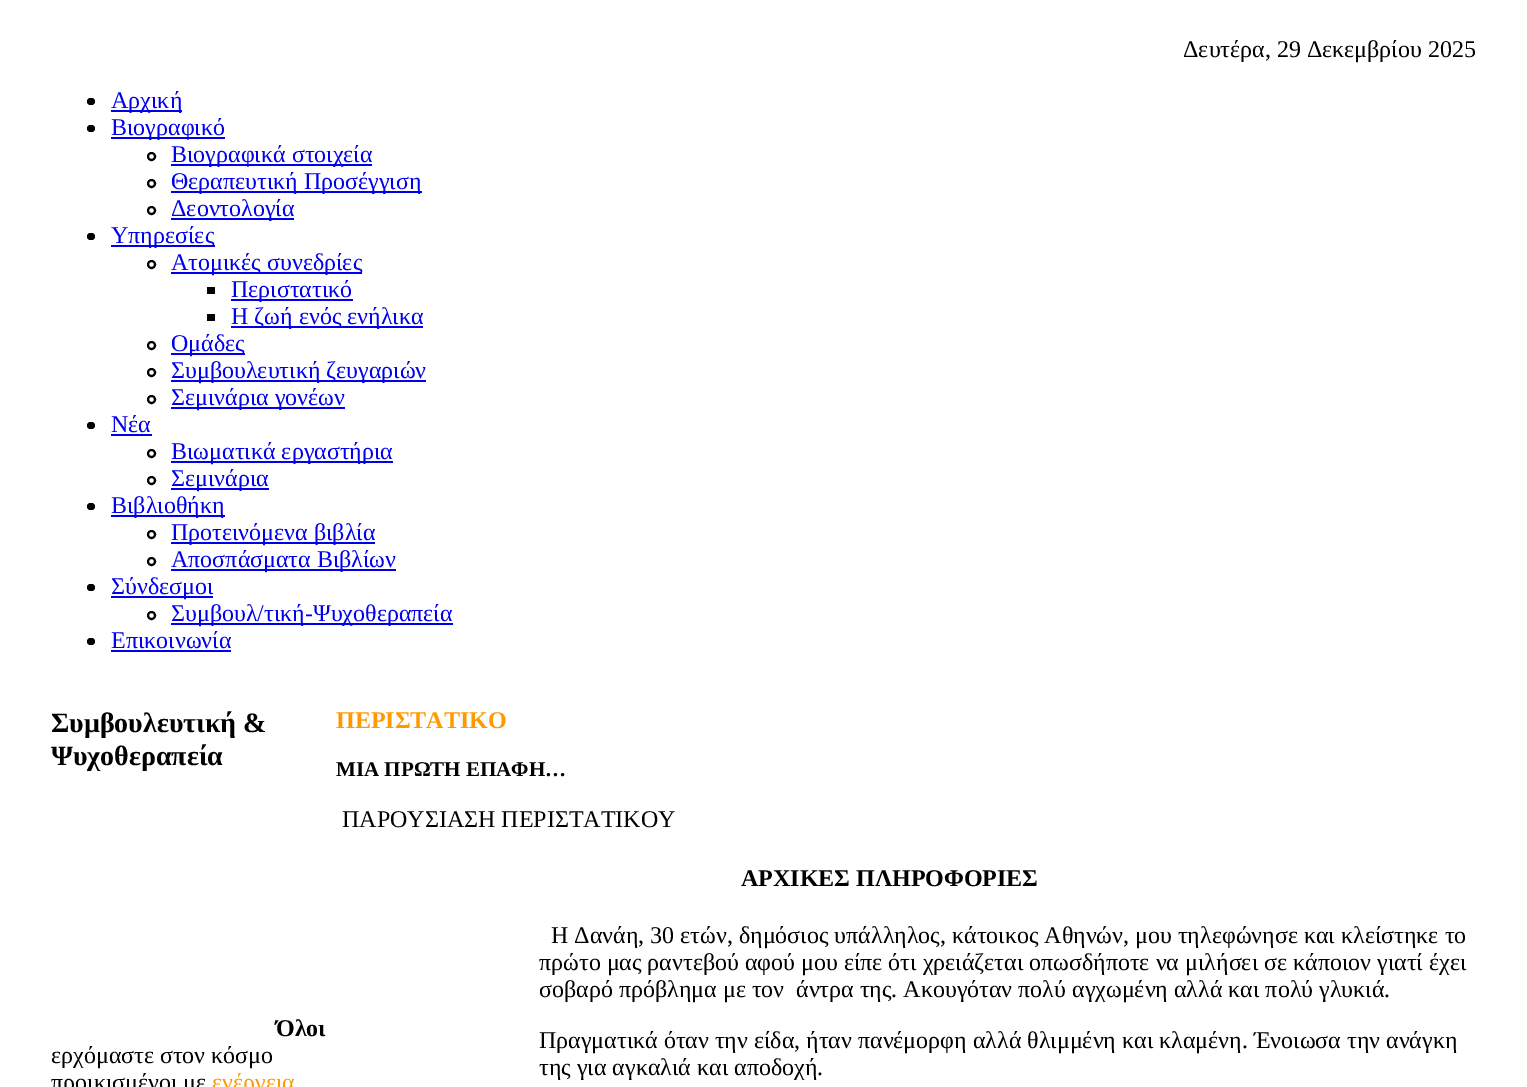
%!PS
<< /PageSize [1527 1087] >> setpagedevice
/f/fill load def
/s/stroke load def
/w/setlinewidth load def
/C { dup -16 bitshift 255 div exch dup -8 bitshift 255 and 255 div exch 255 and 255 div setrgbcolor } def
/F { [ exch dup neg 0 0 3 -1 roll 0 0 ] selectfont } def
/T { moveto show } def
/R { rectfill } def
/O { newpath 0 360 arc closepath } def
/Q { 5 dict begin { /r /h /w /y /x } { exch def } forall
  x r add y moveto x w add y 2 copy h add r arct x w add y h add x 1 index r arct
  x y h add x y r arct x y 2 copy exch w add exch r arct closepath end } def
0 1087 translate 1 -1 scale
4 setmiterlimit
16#FFFFFF C
0 0 1527 1087 R
/LiberationSerif-Regular 24 F
16#000000 C
(Δευτέρα, 29 Δεκεμβρίου 2025) 1183 57 T
87 98 8 7 3.5 Q f
16#0000EE C
111 110 71 2 R
(Αρχική) 111 108 T
16#000000 C
87 125 8 7 3.5 Q f
16#0000EE C
111 137 114 2 R
(Βιογραφικό) 111 135 T
16#000000 C
2 w
151.5 156.5 3.5 O s
16#0000EE C
171 164 201 2 R
(Βιογραφικά στοιχεία) 171 162 T
16#000000 C
151.5 183.5 3.5 O s
16#0000EE C
171 191 251 2 R
(Θεραπευτική Προσέγγιση) 171 189 T
16#000000 C
151.5 210.5 3.5 O s
16#0000EE C
171 218 123 2 R
(Δεοντολογία) 171 216 T
16#000000 C
87 233 8 7 3.5 Q f
16#0000EE C
111 245 104 2 R
(Υπηρεσίες) 111 243 T
16#000000 C
151.5 264.5 3.5 O s
16#0000EE C
171 272 191 2 R
(Ατομικές συνεδρίες) 171 270 T
16#000000 C
207 287 8 7 R
16#0000EE C
231 299 122 2 R
(Περιστατικό) 231 297 T
16#000000 C
207 314 8 7 R
16#0000EE C
231 326 192 2 R
(Η ζωή ενός ενήλικα) 231 324 T
16#000000 C
151.5 345.5 3.5 O s
16#0000EE C
171 353 74 2 R
(Ομάδες) 171 351 T
16#000000 C
151.5 372.5 3.5 O s
16#0000EE C
171 380 255 2 R
(Συμβουλευτική ζευγαριών) 171 378 T
16#000000 C
151.5 399.5 3.5 O s
16#0000EE C
171 407 174 2 R
(Σεμινάρια γονέων) 171 405 T
16#000000 C
87 422 8 7 3.5 Q f
16#0000EE C
(Νέα) 111 432 T
111 434 41 2 R
16#000000 C
151.5 453.5 3.5 O s
16#0000EE C
171 461 222 2 R
(Βιωματικά εργαστήρια) 171 459 T
16#000000 C
151.5 480.5 3.5 O s
16#0000EE C
171 488 98 2 R
(Σεμινάρια) 171 486 T
16#000000 C
87 503 8 7 3.5 Q f
16#0000EE C
111 515 114 2 R
(Βιβλιοθήκη) 111 513 T
16#000000 C
151.5 534.5 3.5 O s
16#0000EE C
171 542 204 2 R
(Προτεινόμενα βιβλία) 171 540 T
16#000000 C
151.5 561.5 3.5 O s
16#0000EE C
171 569 225 2 R
(Αποσπάσματα Βιβλίων) 171 567 T
16#000000 C
87 584 8 7 3.5 Q f
16#0000EE C
111 596 102 2 R
(Σύνδεσμοι) 111 594 T
16#000000 C
151.5 615.5 3.5 O s
16#0000EE C
171 623 282 2 R
(Συμβουλ/τική-Ψυχοθεραπεία) 171 621 T
16#000000 C
87 638 8 7 3.5 Q f
16#0000EE C
(Eπικοινωνία) 111 648 T
111 650 120 2 R
/LiberationSerif-Bold 28 F
16#000000 C
(Συμβουλευτική &) 51 732 T
(Ψυχοθεραπεία) 51 765 T
/LiberationSerif-Bold 24 F
(Όλοι) 276 1036 T
/LiberationSerif-Regular 24 F
(ερχόμαστε στον κόσμο) 51 1063 T
(προικισμένοι με) 51 1090 T
16#FF9900 C
(ενέργεια) 212 1090 T
/LiberationSerif-Bold 24 F
(ΠΕΡΙΣΤΑΤΙΚΟ) 336 728 T
/LiberationSerif-Bold 21 F
16#000000 C
(ΜΙΑ ΠΡΩΤΗ ΕΠΑΦΗ…) 336 776 T
/LiberationSerif-Regular 24 F
(ΠΑΡΟΥΣΙΑΣΗ ΠΕΡΙΣΤΑΤΙΚΟΥ) 342 827 T
/LiberationSerif-Bold 24 F
(ΑΡΧΙΚΕΣ ΠΛΗΡΟΦΟΡΙΕΣ) 741 886 T
/LiberationSerif-Regular 24 F
(Η Δανάη, 30 ετών, δημόσιος υπάλληλος, κάτοικος Αθηνών, μου τηλεφώνησε και κλείστηκε το) 551 943 T
(πρώτο μας ραντεβού αφού μου είπε ότι χρειάζεται οπωσδήποτε να μιλήσει σε κάποιον γιατί έχει) 539 970 T
(σοβαρό πρόβλημα με τον) 539 997 T
(άντρα της. Ακουγόταν πολύ αγχωμένη αλλά και πολύ γλυκιά.) 796 997 T
(Πραγματικά όταν την είδα, ήταν πανέμορφη αλλά θλιμμένη και κλαμένη. Ένοιωσα την ανάγκη) 539 1048 T
(της για αγκαλιά και αποδοχή.) 539 1075 T
showpage
